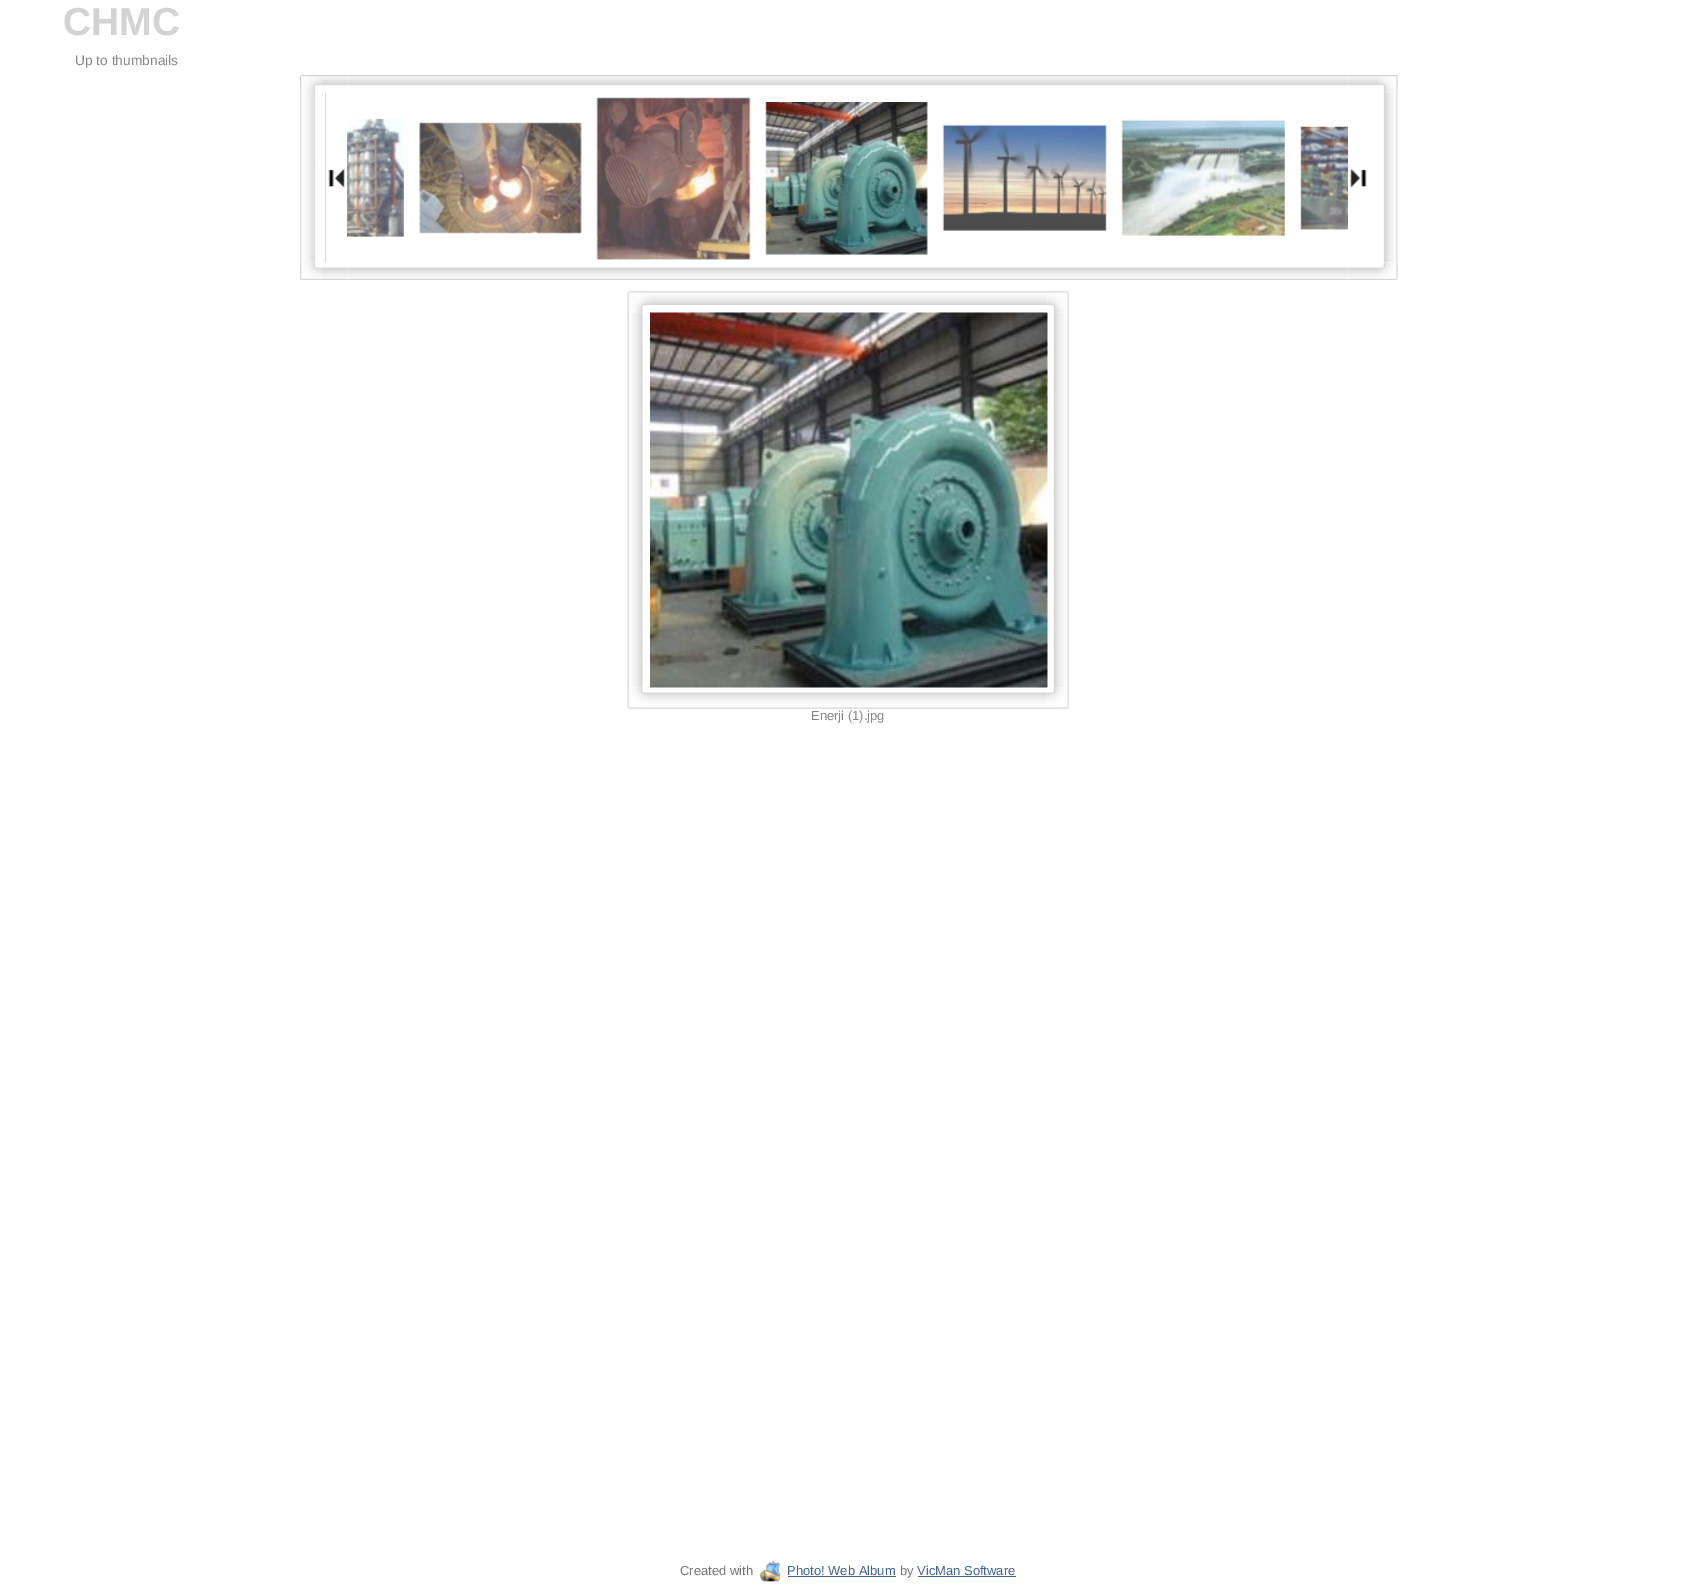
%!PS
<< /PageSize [1696 1589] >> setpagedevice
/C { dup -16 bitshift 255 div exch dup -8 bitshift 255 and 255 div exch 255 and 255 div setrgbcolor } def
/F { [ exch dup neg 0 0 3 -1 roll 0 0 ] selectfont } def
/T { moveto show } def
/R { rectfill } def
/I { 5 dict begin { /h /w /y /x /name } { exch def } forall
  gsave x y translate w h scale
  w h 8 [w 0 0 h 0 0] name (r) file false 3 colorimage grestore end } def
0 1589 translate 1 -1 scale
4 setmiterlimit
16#FFFFFF C
0 0 1696 1589 R
/LiberationSans-Bold 39 F
16#D3D3D3 C
(CHMC) 63 35 T
/LiberationSans-Regular 13.75 F
16#868686 C
(Up to thumbnails) 75 65 T
(1.rgb) 322 75 26 11 I
(6.rgb) 300 92 26 171 I
(2.rgb) 300 75 22 18 I
(3.rgb) 347 75 1001 11 I
(4.rgb) 1347 75 51 11 I
(15.rgb) 1383 92 15 171 I
(5.rgb) 1377 75 21 18 I
(7.rgb) 328 168 17 20 I
(8.rgb) 347 119 57 118 I
(9.rgb) 419 122 163 112 I
(10.rgb) 596 97 155 163 I
(11.rgb) 765 102 163 153 I
(12.rgb) 942 124 165 107 I
(13.rgb) 1121 119 164 117 I
(14.rgb) 1300 126 48 104 I
(16.rgb) 1350 168 17 20 I
(17.rgb) 300 262 48 18 I
(18.rgb) 300 262 22 18 I
(19.rgb) 347 267 1001 13 I
(20.rgb) 1347 262 51 18 I
(21.rgb) 1377 262 21 18 I
(25.rgb) 627 312 16 376 I
(22.rgb) 627 291 23 22 I
(23.rgb) 650 291 398 14 I
(26.rgb) 650 312 398 376 I
(27.rgb) 1053 312 16 376 I
(24.rgb) 1047 291 22 22 I
(28.rgb) 627 687 23 22 I
(29.rgb) 650 692 398 17 I
(30.rgb) 1047 687 22 22 I
/LiberationSans-Regular 13 F
(Enerji \(1\).jpg) 811 720 T
16#747474 C
(Created with) 680 1575 T
(31.rgb) 759 1561 22 21 I
16#43638E C
(Photo! Web Album) 787 1575 T
788 1576 108 1 R
16#747474 C
(by) 900 1575 T
16#43638E C
(VicMan Software) 917 1575 T
918 1576 98 1 R
showpage
